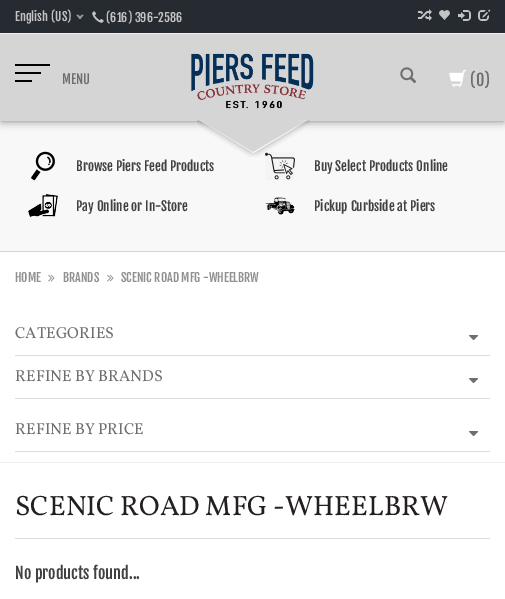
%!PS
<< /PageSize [505 599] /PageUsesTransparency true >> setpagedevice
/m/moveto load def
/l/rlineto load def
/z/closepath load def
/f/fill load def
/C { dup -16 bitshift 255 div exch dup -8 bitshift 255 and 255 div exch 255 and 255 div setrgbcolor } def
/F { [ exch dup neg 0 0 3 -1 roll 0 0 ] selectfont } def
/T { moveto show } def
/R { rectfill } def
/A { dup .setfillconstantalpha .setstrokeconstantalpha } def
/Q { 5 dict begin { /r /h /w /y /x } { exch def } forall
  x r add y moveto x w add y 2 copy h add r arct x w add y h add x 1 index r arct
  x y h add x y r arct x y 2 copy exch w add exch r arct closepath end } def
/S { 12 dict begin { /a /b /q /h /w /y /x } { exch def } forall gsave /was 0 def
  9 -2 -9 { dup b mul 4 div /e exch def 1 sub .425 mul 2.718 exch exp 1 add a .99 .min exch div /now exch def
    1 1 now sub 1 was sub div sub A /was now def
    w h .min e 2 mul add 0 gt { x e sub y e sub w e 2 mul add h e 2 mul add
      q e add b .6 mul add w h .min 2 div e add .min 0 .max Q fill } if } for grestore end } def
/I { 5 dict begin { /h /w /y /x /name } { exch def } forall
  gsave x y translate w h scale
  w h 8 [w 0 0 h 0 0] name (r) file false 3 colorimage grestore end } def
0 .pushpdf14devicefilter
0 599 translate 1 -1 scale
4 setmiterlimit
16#FFFFFF C
0 0 505 599 R
16#F8F8F8 C
0 121 505 130 R
16#000000 C
2 36 501 83 0 5 .75 S
16#262B32 C
0 0 505 33 R
16#F0F0F0 C
0 33 505 1 R
/FjallaOne-Regular 12 F
16#C3C3C3 C
(English \(US\)) 15 21 T
16#999999 C
82 14.5 m 1.5 1 l -3.5 3.5 l -1.5 -1 l z f
78 14.5 m 3.5 3.5 l -1.5 1 l -3.5 -3.5 l z f
(1.rgb) 92 11 12 12 I
16#C3C3C3 C
(\(616\) 396-2586) 106 22 T
(2.rgb) 418 9 14 12 I
(3.rgb) 439 10 11 10 I
(4.rgb) 458 10 13 11 I
(5.rgb) 478 9 13 12 I
16#D5D5D5 C
0 34 505 87 R
16#000000 C
15 64 35 2 R
15 72 26 2 R
15 80 17 2 R
/FjallaOne-Regular 13 F
16#6D6E71 C
(MENU) 62 84 T
(6.rgb) 191 53 123 56 I
16#D5D5D5 C
197 119 m 112 0 l -56 33 l z f
(11.rgb) 265 152 30 28 I
(7.rgb) 197 120 113 37 I
(8.rgb) 400 67 17 17 I
(9.rgb) 449 70 17 17 I
/FjallaOne-Regular 16 F
16#6D6E71 C
(\(0\)) 470 86 T
16#D5D5D5 C
0 251 505 1 R
(10.rgb) 31 151 24 30 I
/FjallaOne-Regular 13 F
16#414141 C
(Browse Piers Feed Products) 76 171 T
(Buy Select Products Online) 314 171 T
(12.rgb) 28 194 30 23 I
(Pay Online or In-Store) 76 211 T
(13.rgb) 265 197 30 18 I
(Pickup Curbside at Piers) 314 211 T
/FjallaOne-Regular 12 F
16#918F8F C
(HOME) 15 282 T
(14.rgb) 48 274 7 8 I
(BRANDS) 63 282 T
(14.rgb) 107 274 7 8 I
(SCENIC ROAD MFG -WHEELBRW) 121 282 T
16#F0F0F0 C
0 462 505 1 R
16#DCDCDC C
15 355 475 1 R
/Vollkorn-Regular 16 F
16#6D6E71 C
(CATEGORIES) 15 338 T
(15.rgb) 469 335 10 6 I
16#DCDCDC C
15 398 475 1 R
16#6D6E71 C
(REFINE BY BRANDS) 15 381 T
(15.rgb) 469 378 10 6 I
16#DCDCDC C
15 451 475 1 R
16#6D6E71 C
(REFINE BY PRICE) 15 434 T
(15.rgb) 469 431 10 6 I
16#DCDCDC C
15 538 475 1 R
/Vollkorn-Regular 28 F
16#231F20 C
(SCENIC ROAD MFG -WHEELBRW) 15 515 T
/FjallaOne-Regular 16 F
16#414141 C
(No products found...) 15 579 T
.poppdf14devicefilter showpage
